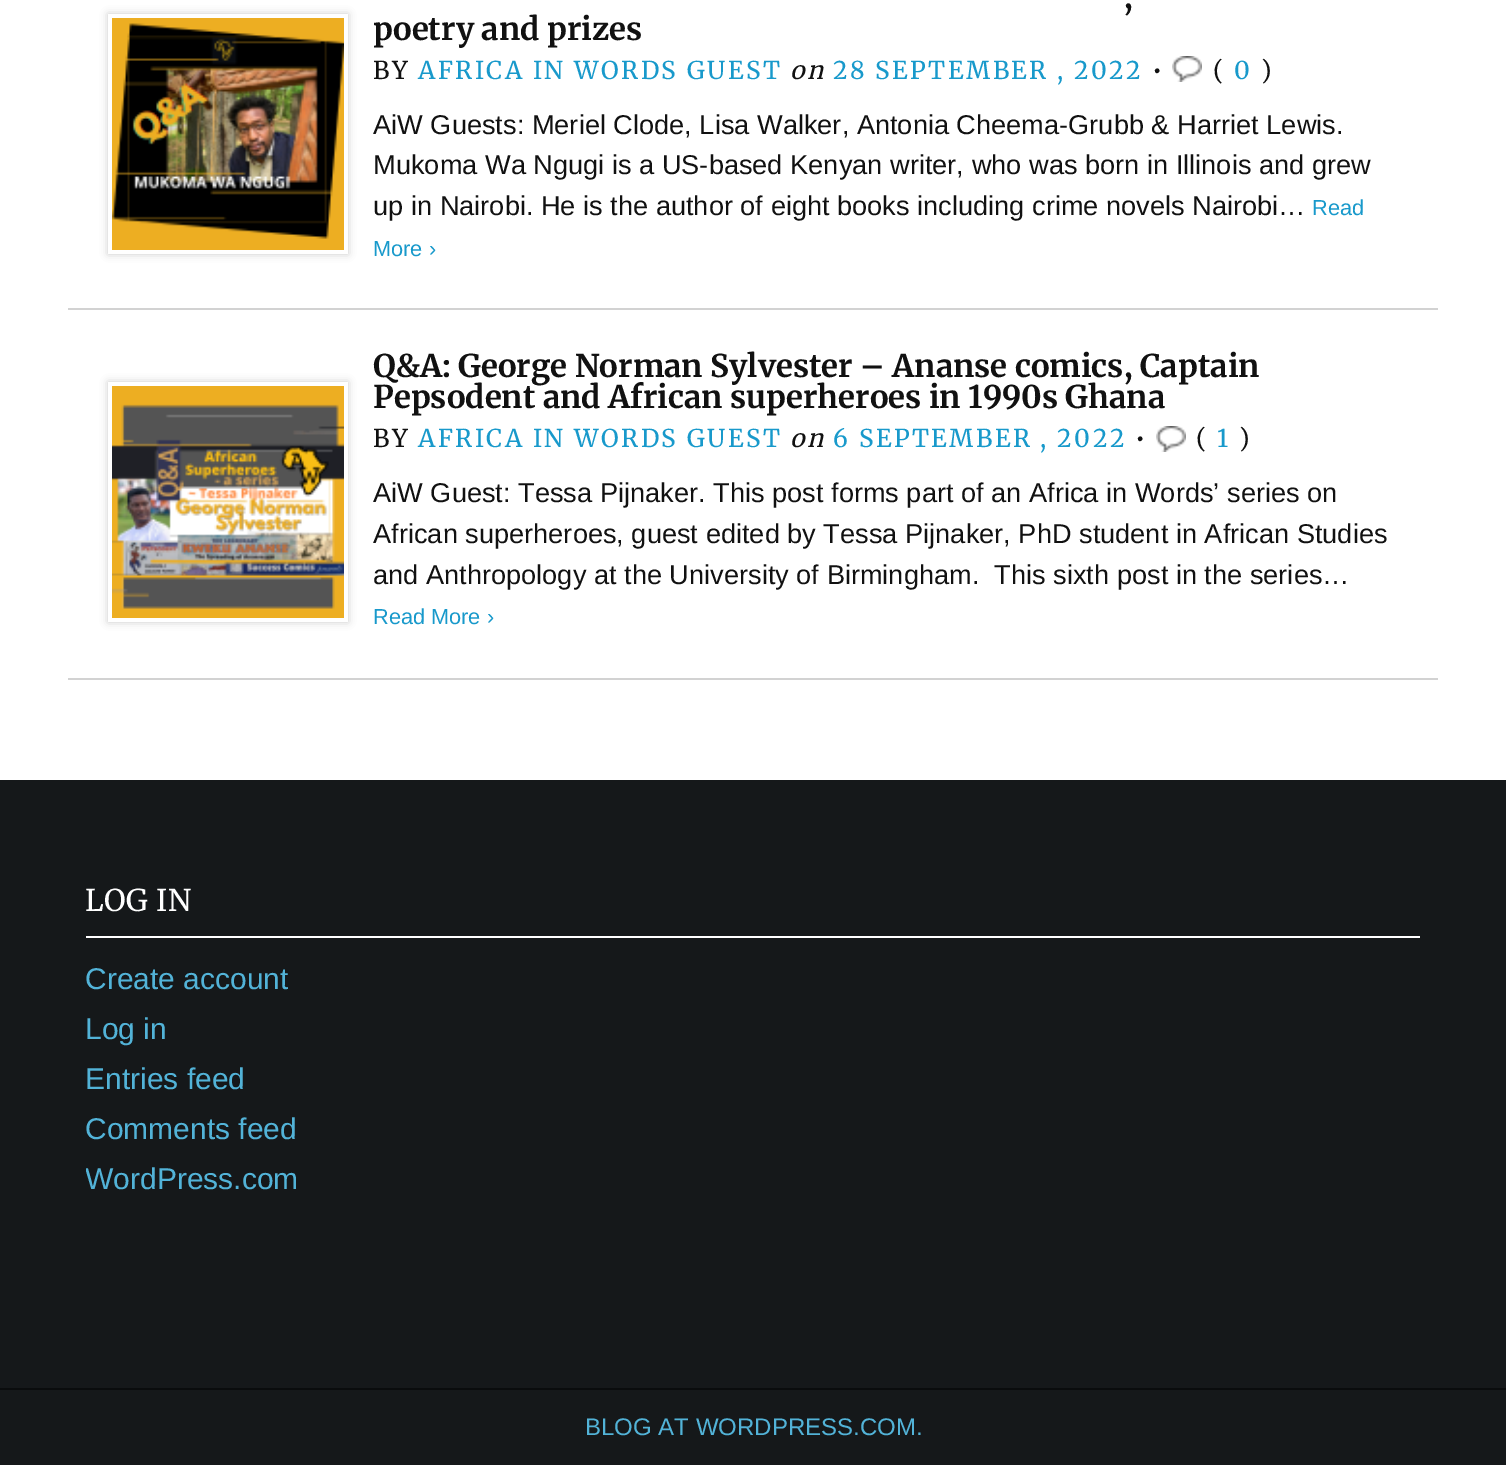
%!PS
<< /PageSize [1506 1465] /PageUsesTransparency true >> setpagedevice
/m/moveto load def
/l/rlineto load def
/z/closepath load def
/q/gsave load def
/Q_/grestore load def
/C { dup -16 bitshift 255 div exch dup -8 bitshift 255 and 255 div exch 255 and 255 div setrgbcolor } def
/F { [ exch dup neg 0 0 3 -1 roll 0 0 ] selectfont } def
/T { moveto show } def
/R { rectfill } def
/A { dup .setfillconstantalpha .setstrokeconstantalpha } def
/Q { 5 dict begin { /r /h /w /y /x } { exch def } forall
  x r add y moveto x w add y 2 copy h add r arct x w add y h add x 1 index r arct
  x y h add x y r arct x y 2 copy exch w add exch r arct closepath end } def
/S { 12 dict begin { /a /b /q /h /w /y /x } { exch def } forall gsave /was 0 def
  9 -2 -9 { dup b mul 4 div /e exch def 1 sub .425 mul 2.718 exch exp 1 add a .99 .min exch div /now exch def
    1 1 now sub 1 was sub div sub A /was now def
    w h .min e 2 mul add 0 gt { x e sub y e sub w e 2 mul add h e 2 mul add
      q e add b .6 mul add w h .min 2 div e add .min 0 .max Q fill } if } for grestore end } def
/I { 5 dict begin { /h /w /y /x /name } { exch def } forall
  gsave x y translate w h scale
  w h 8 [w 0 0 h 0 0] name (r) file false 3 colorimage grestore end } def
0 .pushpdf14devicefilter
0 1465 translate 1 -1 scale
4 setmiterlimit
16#FFFFFF C
0 0 1506 1465 R
16#D2D2D2 C
68 308 1370 2 R
q
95 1 m 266 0 l 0 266 l -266 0 l z 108 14 m 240 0 l 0 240 l -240 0 l z eoclip newpath
16#000000 C
108 14 240 240 0 4 .2 S
Q_
(1.rgb) 112 18 232 232 I
/Merriweather-Bold 31.25 F
16#111111 C
(,) 1124 8 T
(poetry and prizes) 373 40 T
/Merriweather-Regular 24.5 F
373 79 m 2.45 0 (BY) ashow
16#1899CB C
418 79 m 2.45 0 (AFRICA IN WORDS GUEST) ashow
/Merriweather-Italic 24.5 F
16#111111 C
790 79 m 2.45 0 (on) ashow
/Merriweather-Regular 24.5 F
16#1899CB C
833 79 m 2.45 0 (28 SEPTEMBER , 2022) ashow
16#111111 C
1152 79 m 2.45 0 (•) ashow
(2.rgb) 1172 56 30 26 I
1213 79 m 2.45 0 (\() ashow
16#1899CB C
1234 79 m 2.45 0 (0) ashow
16#111111 C
1261 79 m 2.45 0 (\)) ashow
/LiberationSans-Regular 27.2 F
(AiW Guests: Meriel Clode, Lisa Walker, Antonia Cheema-Grubb & Harriet Lewis.) 373 134 T
(Mukoma Wa Ngugi is a US-based Kenyan writer, who was born in Illinois and grew) 373 174 T
(up in Nairobi. He is the author of eight books including crime novels Nairobi…) 373 215 T
/LiberationSans-Regular 21.75 F
16#1899CB C
(Read) 1312 215 T
(More ›) 373 256 T
16#D2D2D2 C
68 678 1370 2 R
q
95 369 m 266 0 l 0 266 l -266 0 l z 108 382 m 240 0 l 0 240 l -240 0 l z eoclip newpath
16#000000 C
108 382 240 240 0 4 .2 S
Q_
(3.rgb) 112 386 232 232 I
/Merriweather-Bold 31.25 F
16#111111 C
(Q&A: George Norman Sylvester – Ananse comics, Captain) 373 377 T
(Pepsodent and African superheroes in 1990s Ghana) 373 408 T
/Merriweather-Regular 24.5 F
373 447 m 2.45 0 (BY) ashow
16#1899CB C
418 447 m 2.45 0 (AFRICA IN WORDS GUEST) ashow
/Merriweather-Italic 24.5 F
16#111111 C
790 447 m 2.45 0 (on) ashow
/Merriweather-Regular 24.5 F
16#1899CB C
833 447 m 2.45 0 (6 SEPTEMBER , 2022) ashow
16#111111 C
1135 447 m 2.45 0 (•) ashow
(2.rgb) 1156 426 30 26 I
1196 447 m 2.45 0 (\() ashow
16#1899CB C
1217 447 m 2.45 0 (1) ashow
16#111111 C
1239 447 m 2.45 0 (\)) ashow
/LiberationSans-Regular 27.2 F
(AiW Guest: Tessa Pijnaker. This post forms part of an Africa in Words’ series on) 373 502 T
(African superheroes, guest edited by Tessa Pijnaker, PhD student in African Studies) 373 543 T
(and Anthropology at the University of Birmingham.  This sixth post in the series…) 373 584 T
/LiberationSans-Regular 21.75 F
16#1899CB C
(Read More ›) 373 624 T
16#15181A C
0 780 1506 685 R
16#FFFFFF C
86 936 1334 2 R
/Merriweather-Regular 30 F
85 911 m .5 0 (LOG IN) ashow
/LiberationSans-Regular 30 F
16#52B3D8 C
(Create account) 85 989 T
(Log in) 85 1039 T
(Entries feed) 85 1089 T
(Comments feed) 85 1139 T
q
86 884 1334 320 rectclip
(WordPress.com) 85 1189 T
Q_
16#0A0C0D C
0 1388 1506 2 R
/LiberationSans-Regular 24 F
16#52B3D8 C
(BLOG AT WORDPRESS.COM.) 585 1435 T
.poppdf14devicefilter showpage
